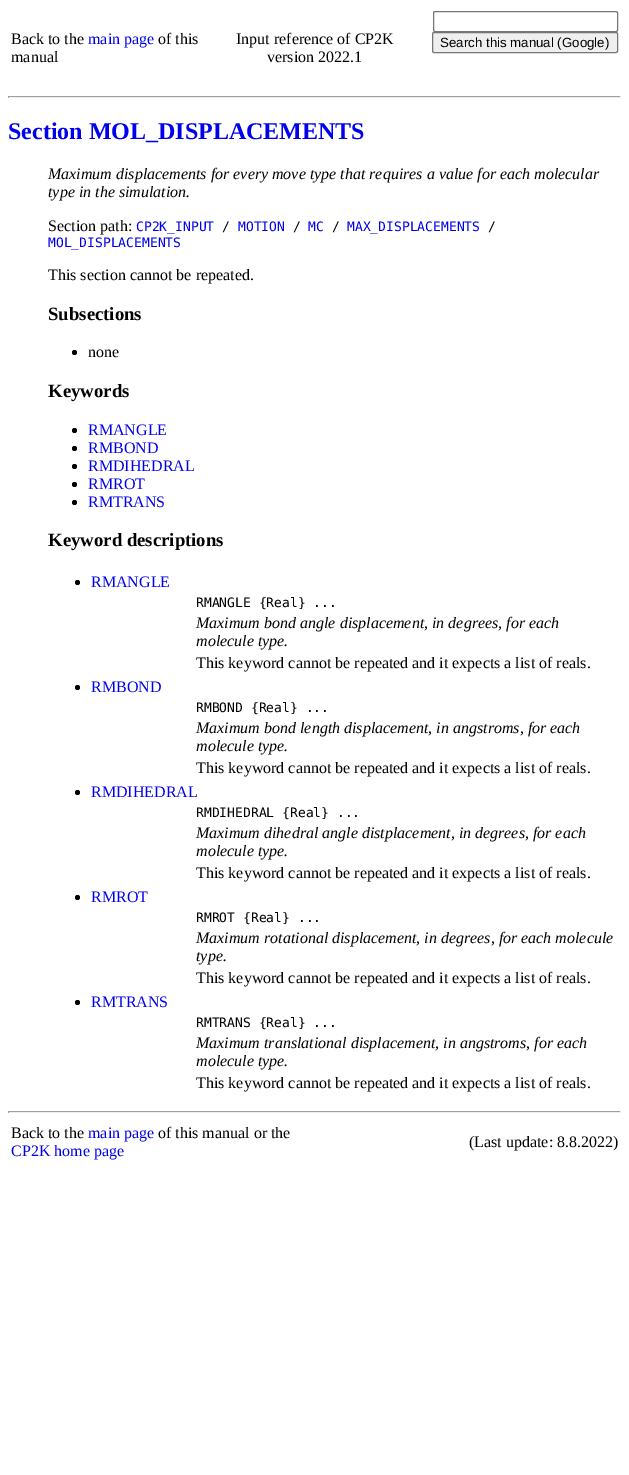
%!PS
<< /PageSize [629 1475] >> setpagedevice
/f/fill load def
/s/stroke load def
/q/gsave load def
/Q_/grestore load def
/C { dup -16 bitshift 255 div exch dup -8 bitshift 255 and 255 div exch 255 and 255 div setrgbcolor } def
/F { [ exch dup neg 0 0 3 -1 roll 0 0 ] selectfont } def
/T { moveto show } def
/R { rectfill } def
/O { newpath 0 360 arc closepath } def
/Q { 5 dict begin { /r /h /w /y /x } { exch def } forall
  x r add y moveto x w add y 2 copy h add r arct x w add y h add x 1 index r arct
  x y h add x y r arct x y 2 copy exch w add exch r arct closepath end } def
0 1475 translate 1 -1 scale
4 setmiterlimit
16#FFFFFF C
0 0 629 1475 R
/LiberationSerif-Regular 16 F
16#000000 C
(Back to the) 11 44 T
16#0000EE C
(main page) 88 44 T
16#000000 C
(of this) 158 44 T
(manual) 11 62 T
(Input reference of CP2K) 236 44 T
(version 2022.1) 267 62 T
16#767676 C
433.5 11.5 184 20 1.5 Q s
16#EFEFEF C
432.5 32.5 185 20 1.5 Q q f Q_
16#767676 C
s
/LiberationSans-Regular 13.3 F
16#000000 C
(Search this manual \(Google\)) 440 47 T
16#9F9F9F C
8 96 613 1 R
16#EEEEEE C
620 96 1 2 R
8 97 613 1 R
16#9F9F9F C
8 96 1 2 R
/LiberationSerif-Bold 24 F
16#0000EE C
(Section MOL_DISPLACEMENTS) 8 139 T
/LiberationSerif-Italic 16 F
16#000000 C
(Maximum displacements for every move type that requires a value for each molecular) 48 179 T
(type in the simulation.) 48 197 T
/LiberationSerif-Regular 16 F
(Section path:) 48 231 T
/DejaVuSansMono-Regular 13 F
16#0000EE C
(CP2K_INPUT) 136 231 T
16#000000 C
(/) 222 231 T
16#0000EE C
(MOTION) 238 231 T
16#000000 C
(/) 293 231 T
16#0000EE C
(MC) 308 231 T
16#000000 C
(/) 332 231 T
16#0000EE C
(MAX_DISPLACEMENTS) 347 231 T
16#000000 C
(/) 488 231 T
16#0000EE C
(MOL_DISPLACEMENTS) 48 247 T
/LiberationSerif-Regular 16 F
16#000000 C
(This section cannot be repeated.) 48 280 T
/LiberationSerif-Bold 18.75 F
(Subsections) 48 320 T
74.5 352.5 2.5 O f
/LiberationSerif-Regular 16 F
(none) 88 357 T
/LiberationSerif-Bold 18.75 F
(Keywords) 48 397 T
74.5 430.5 2.5 O f
/LiberationSerif-Regular 16 F
16#0000EE C
(RMANGLE) 88 435 T
16#000000 C
74.5 448.5 2.5 O f
16#0000EE C
(RMBOND) 88 453 T
16#000000 C
74.5 466.5 2.5 O f
16#0000EE C
(RMDIHEDRAL) 88 471 T
16#000000 C
74.5 484.5 2.5 O f
16#0000EE C
(RMROT) 88 489 T
16#000000 C
74.5 502.5 2.5 O f
16#0000EE C
(RMTRANS) 88 507 T
/LiberationSerif-Bold 18.75 F
16#000000 C
(Keyword descriptions) 48 546 T
77.5 582.5 2.5 O f
/LiberationSerif-Regular 16 F
16#0000EE C
(RMANGLE) 91 587 T
/DejaVuSansMono-Regular 13 F
16#000000 C
(RMANGLE {Real} ...) 196 607 T
/LiberationSerif-Italic 16 F
(Maximum bond angle displacement, in degrees, for each) 196 628 T
(molecule type.) 196 646 T
/LiberationSerif-Regular 16 F
(This keyword cannot be repeated and it expects a list of reals.) 196 668 T
77.5 687.5 2.5 O f
16#0000EE C
(RMBOND) 91 692 T
/DejaVuSansMono-Regular 13 F
16#000000 C
(RMBOND {Real} ...) 196 712 T
/LiberationSerif-Italic 16 F
(Maximum bond length displacement, in angstroms, for each) 196 733 T
(molecule type.) 196 751 T
/LiberationSerif-Regular 16 F
(This keyword cannot be repeated and it expects a list of reals.) 196 773 T
77.5 792.5 2.5 O f
16#0000EE C
(RMDIHEDRAL) 91 797 T
/DejaVuSansMono-Regular 13 F
16#000000 C
(RMDIHEDRAL {Real} ...) 196 817 T
/LiberationSerif-Italic 16 F
(Maximum dihedral angle distplacement, in degrees, for each) 196 838 T
(molecule type.) 196 856 T
/LiberationSerif-Regular 16 F
(This keyword cannot be repeated and it expects a list of reals.) 196 878 T
77.5 897.5 2.5 O f
16#0000EE C
(RMROT) 91 902 T
/DejaVuSansMono-Regular 13 F
16#000000 C
(RMROT {Real} ...) 196 922 T
/LiberationSerif-Italic 16 F
(Maximum rotational displacement, in degrees, for each molecule) 196 943 T
(type.) 196 961 T
/LiberationSerif-Regular 16 F
(This keyword cannot be repeated and it expects a list of reals.) 196 983 T
77.5 1002.5 2.5 O f
16#0000EE C
(RMTRANS) 91 1007 T
/DejaVuSansMono-Regular 13 F
16#000000 C
(RMTRANS {Real} ...) 196 1027 T
/LiberationSerif-Italic 16 F
(Maximum translational displacement, in angstroms, for each) 196 1048 T
(molecule type.) 196 1066 T
/LiberationSerif-Regular 16 F
(This keyword cannot be repeated and it expects a list of reals.) 196 1088 T
16#9F9F9F C
8 1111 613 1 R
16#EEEEEE C
620 1111 1 2 R
8 1112 613 1 R
16#9F9F9F C
8 1111 1 2 R
16#000000 C
(Back to the) 11 1138 T
16#0000EE C
(main page) 88 1138 T
16#000000 C
(of this manual or the) 158 1138 T
16#0000EE C
(CP2K home page) 11 1156 T
16#000000 C
(\(Last update: 8.8.2022\)) 469 1147 T
showpage
